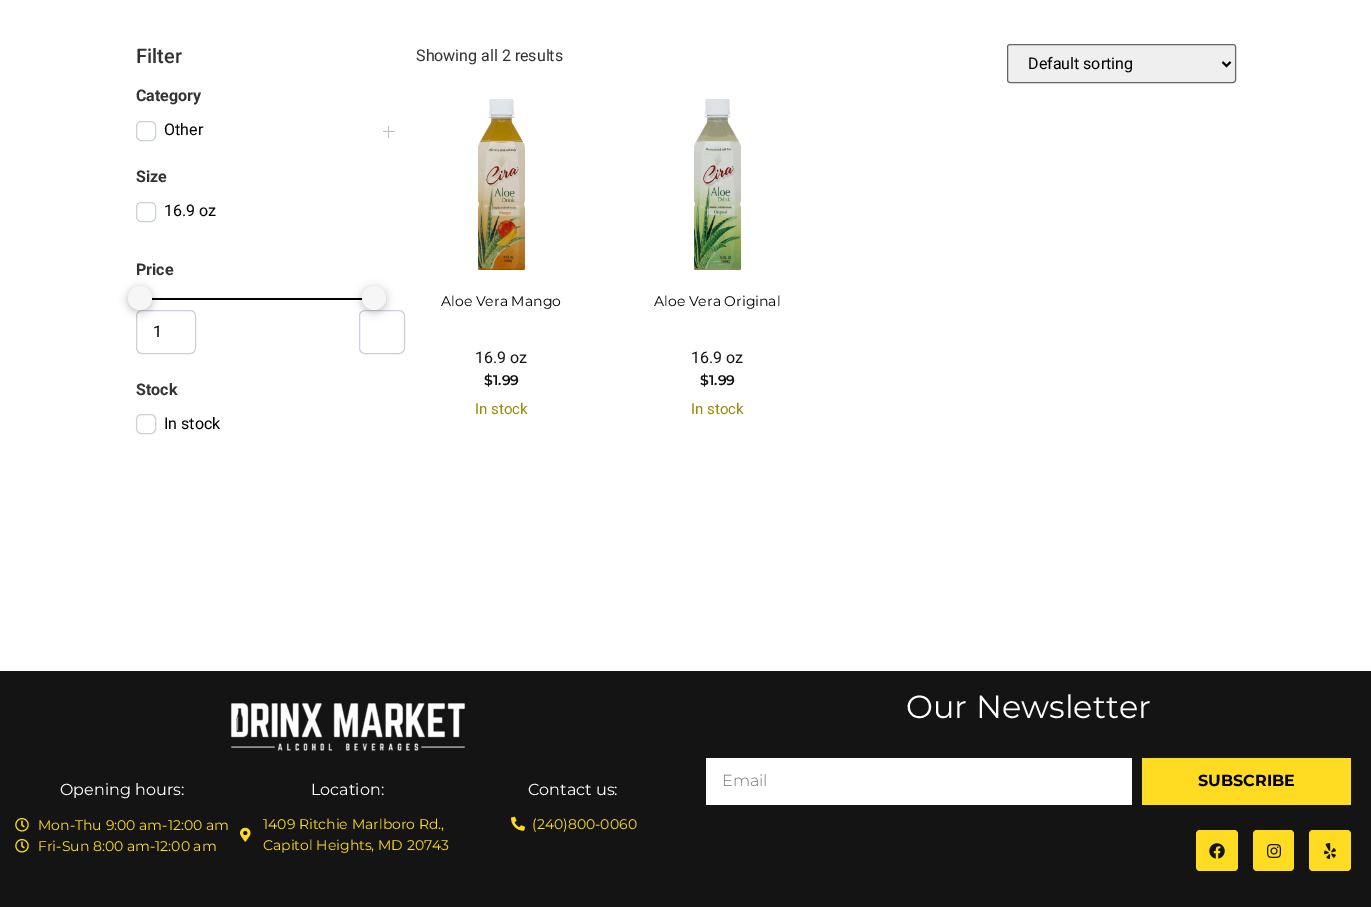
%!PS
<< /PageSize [1371 907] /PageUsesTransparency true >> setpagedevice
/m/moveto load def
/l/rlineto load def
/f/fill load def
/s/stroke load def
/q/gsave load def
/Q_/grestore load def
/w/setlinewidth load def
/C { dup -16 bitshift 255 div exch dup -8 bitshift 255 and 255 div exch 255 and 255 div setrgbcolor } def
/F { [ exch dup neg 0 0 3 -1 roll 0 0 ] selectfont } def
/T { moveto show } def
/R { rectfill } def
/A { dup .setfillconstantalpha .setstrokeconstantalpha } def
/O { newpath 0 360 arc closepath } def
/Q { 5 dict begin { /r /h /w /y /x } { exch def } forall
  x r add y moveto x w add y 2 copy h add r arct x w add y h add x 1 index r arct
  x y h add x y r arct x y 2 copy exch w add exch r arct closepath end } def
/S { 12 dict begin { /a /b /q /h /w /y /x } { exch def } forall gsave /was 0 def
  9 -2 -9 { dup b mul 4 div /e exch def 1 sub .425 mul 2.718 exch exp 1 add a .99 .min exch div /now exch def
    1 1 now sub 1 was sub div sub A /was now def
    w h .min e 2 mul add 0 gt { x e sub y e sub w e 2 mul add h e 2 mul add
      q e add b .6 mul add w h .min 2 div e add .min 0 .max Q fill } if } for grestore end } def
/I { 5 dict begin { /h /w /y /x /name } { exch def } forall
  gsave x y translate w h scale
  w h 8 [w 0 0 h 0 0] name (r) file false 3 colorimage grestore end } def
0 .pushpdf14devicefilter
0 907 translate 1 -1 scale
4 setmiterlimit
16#FFFFFF C
0 0 1371 907 R
/Roboto-Medium 20 F
16#333333 C
(Filter) 136 63 T
/Roboto-Bold 16 F
(Category) 136 101 T
16#C9D1E0 C
136.5 121.5 19 19 4.5 Q s
/Roboto-Regular 16 F
16#000000 C
(Other) 164 135 T
16#B8BCC8 C
388 126 1 12 R
383 131 12 1 R
/Roboto-Bold 16 F
16#333333 C
(Size) 136 182 T
16#C9D1E0 C
136.5 202.5 19 19 4.5 Q s
/Roboto-Regular 16 F
16#000000 C
(16.9 oz) 164 216 T
/Roboto-Bold 16 F
16#333333 C
(Price) 136 275 T
16#000000 C
151 298 212 2 R
16#CCD0DC C
136.5 310.5 59 43 5.5 Q s
16#000000 C
128 288 24 24 12 4.5 .23 S
16#F6F6F6 C
140 298 12 O f
16#CCD0DC C
359.5 310.5 45 43 5.5 Q s
16#000000 C
362 288 24 24 12 4.5 .23 S
16#F6F6F6 C
374 298 12 O f
/Roboto-Regular 16 F
16#000000 C
(1) 153 337 T
/Roboto-Bold 16 F
16#333333 C
(Stock) 136 395 T
16#C9D1E0 C
136.5 414.5 19 19 4.5 Q s
/Roboto-Regular 16 F
16#000000 C
(In stock) 164 429 T
16#333333 C
(Showing all 2 results) 416 61 T
16#EFEFEF C
1007.5 44.5 228 38 2.5 Q q f Q_
16#666666 C
s
16#000000 C
2 w
1222.5 62 m 4 4 l 4 -4 l s
(Default sorting) 1028 69 T
(1.rgb) 478 99 47 171 I
/Montserrat-Thin 14 F
(Aloe Vera Mango) 441 306 T
/Roboto-Regular 16 F
16#141414 C
(16.9 oz) 475 363 T
/Montserrat-SemiBold 14 F
($1.99) 484 385 T
/Roboto-Regular 15 F
16#958E09 C
(In stock) 475 414 T
(2.rgb) 694 99 47 171 I
/Montserrat-Thin 14 F
16#000000 C
(Aloe Vera Original) 654 306 T
/Roboto-Regular 16 F
16#141414 C
(16.9 oz) 691 363 T
/Montserrat-SemiBold 14 F
($1.99) 700 385 T
/Roboto-Regular 15 F
16#958E09 C
(In stock) 691 414 T
16#141414 C
0 671 1371 236 R
/Montserrat-Thin 32 F
16#FFFFFF C
(Our Newsletter) 906 718 T
706 758 426 47 R
/Montserrat-Light 16 F
16#727272 C
(Email) 722 786 T
16#FFDC22 C
1142 758 209 47 R
/Montserrat-Bold 16 F
16#000000 C
(SUBSCRIBE) 1198 786 T
16#FFDC22 C
1196 830 42 41 4 Q f
(3.rgb) 1209 843 16 16 I
1253 830 41 41 4 Q f
(4.rgb) 1267 844 14 14 I
1309 830 42 41 4 Q f
(5.rgb) 1324 843 12 16 I
(6.rgb) 230 703 236 48 I
/Montserrat-Thin 16 F
16#FFFFFF C
(Opening hours:) 60 795 T
(7.rgb) 15 818 14 14 I
/Montserrat-Thin 14 F
16#FFDC22 C
(Mon-Thu 9:00 am-12:00 am) 38 830 T
(7.rgb) 15 839 14 14 I
(Fri-Sun 8:00 am-12:00 am) 38 851 T
/Montserrat-Thin 16 F
16#FFFFFF C
(Location:) 311 795 T
(8.rgb) 240 827 11 15 I
/Montserrat-Thin 14 F
16#FFDC22 C
(1409 Ritchie Marlboro Rd.,) 263 829 T
(Capitol Heights, MD 20743) 263 850 T
/Montserrat-Thin 16 F
16#FFFFFF C
(Contact us:) 528 795 T
(9.rgb) 511 816 14 15 I
/Montserrat-Thin 14 F
16#FFDC22 C
(\(240\)800-0060) 532 829 T
.poppdf14devicefilter showpage
